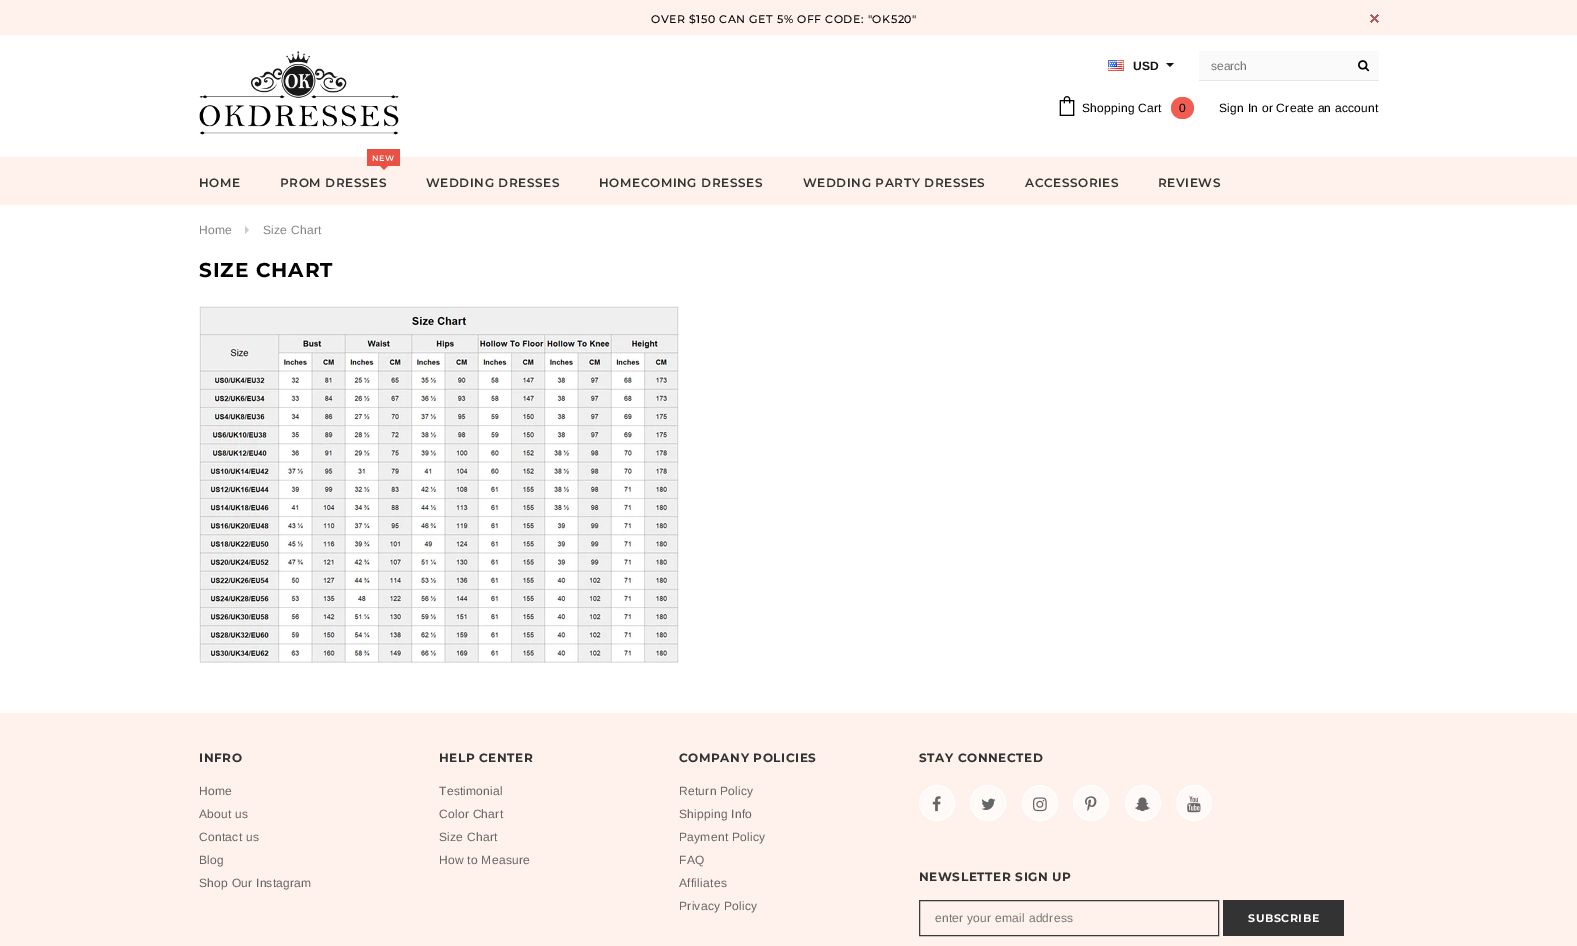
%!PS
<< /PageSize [1577 946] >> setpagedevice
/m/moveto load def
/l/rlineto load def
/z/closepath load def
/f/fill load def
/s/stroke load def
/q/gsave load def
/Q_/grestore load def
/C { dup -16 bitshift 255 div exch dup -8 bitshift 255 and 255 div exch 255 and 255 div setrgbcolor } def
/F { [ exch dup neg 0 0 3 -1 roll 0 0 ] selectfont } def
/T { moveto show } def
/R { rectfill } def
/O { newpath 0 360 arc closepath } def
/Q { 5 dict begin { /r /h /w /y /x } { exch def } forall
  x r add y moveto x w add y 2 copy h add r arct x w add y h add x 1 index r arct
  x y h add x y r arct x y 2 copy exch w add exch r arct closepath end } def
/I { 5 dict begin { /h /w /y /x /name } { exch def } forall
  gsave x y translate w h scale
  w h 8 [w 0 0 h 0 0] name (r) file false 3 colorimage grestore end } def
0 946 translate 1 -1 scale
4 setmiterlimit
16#FFFFFF C
0 0 1577 946 R
16#FFF1EB C
0 0 1577 35 R
/Montserrat-Medium 11 F
16#020000 C
651 23 m .55 0 (OVER $150 CAN GET 5% OFF CODE: "OK520") ashow
(1.rgb) 1370 14 9 9 I
(2.rgb) 1108 60 16 11 I
/Arimo-Bold 12 F
16#141414 C
(USD) 1133 70 T
1166 63 m 8 0 l -4 4 l z f
16#FAFAFA C
1199 51 180 29 R
16#E7E7E7 C
1199 80 180 1 R
/Arimo-Regular 12 F
16#757575 C
(search) 1211 70 T
(3.rgb) 1358 60 12 12 I
(4.rgb) 199 51 200 84 I
(5.rgb) 1059 96 16 20 I
16#020000 C
1082 112 m .25 0 (Shopping Cart) ashow
16#F25D52 C
1171 97 23 22 11 Q f
16#020000 C
1179 112 m .25 0 (0) ashow
1219 112 m .25 0 (Sign In or Create an account) ashow
16#FFF1EB C
0 157 1577 48 R
/Montserrat-SemiBold 12 F
16#333333 C
199 187 m .6 0 (HOME) ashow
16#E95144 C
367 149 33 17 R
/Montserrat-SemiBold 8 F
16#FFFFFF C
372 161 m .6 0 (NEW) ashow
16#E95144 C
380 166 m 8 0 l -4 4 l z f
/Montserrat-SemiBold 12 F
16#333333 C
280 187 m .6 0 (PROM DRESSES) ashow
426 187 m .6 0 (WEDDING DRESSES) ashow
599 187 m .6 0 (HOMECOMING DRESSES) ashow
803 187 m .6 0 (WEDDING PARTY DRESSES) ashow
1025 187 m .6 0 (ACCESSORIES) ashow
1158 187 m .6 0 (REVIEWS) ashow
/Arimo-Regular 12 F
16#848484 C
199 234 m .25 0 (Home) ashow
16#CBCBCB C
245 234 m 0 -8 l 4 4 l z f
16#848484 C
263 234 m .25 0 (Size Chart) ashow
/Montserrat-Bold 20 F
16#020000 C
199 277 m 1 0 (SIZE CHART) ashow
(6.rgb) 199 306 480 357 I
16#FFF1EB C
0 713 1577 233 R
/Montserrat-Bold 12 F
16#333333 C
199 762 m .6 0 (INFRO) ashow
/Arimo-Regular 12 F
16#666666 C
199 795 m .25 0 (Home) ashow
199 818 m .25 0 (About us) ashow
199 841 m .25 0 (Contact us) ashow
199 864 m .25 0 (Blog) ashow
199 887 m .25 0 (Shop Our Instagram) ashow
/Montserrat-Bold 12 F
16#333333 C
439 762 m .6 0 (HELP CENTER) ashow
/Arimo-Regular 12 F
16#666666 C
439 795 m .25 0 (Testimonial) ashow
439 818 m .25 0 (Color Chart) ashow
439 841 m .25 0 (Size Chart) ashow
439 864 m .25 0 (How to Measure) ashow
/Montserrat-Bold 12 F
16#333333 C
679 762 m .6 0 (COMPANY POLICIES) ashow
/Arimo-Regular 12 F
16#666666 C
679 795 m .25 0 (Return Policy) ashow
679 818 m .25 0 (Shipping Info) ashow
679 841 m .25 0 (Payment Policy) ashow
679 864 m .25 0 (FAQ) ashow
679 887 m .25 0 (Affiliates) ashow
679 910 m .25 0 (Privacy Policy) ashow
/Montserrat-Bold 12 F
16#333333 C
919 762 m .6 0 (STAY CONNECTED) ashow
16#FFF9F7 C
937 803 17.5 O q f Q_
16#FFFFFF C
s
(7.rgb) 932 796 9 16 I
16#FFF9F7 C
988 803 17.5 O q f Q_
16#FFFFFF C
s
(8.rgb) 981 798 15 12 I
16#FFF9F7 C
1040 803 17.5 O q f Q_
16#FFFFFF C
s
(9.rgb) 1033 797 14 15 I
16#FFF9F7 C
1091 803 17.5 O q f Q_
16#FFFFFF C
s
(10.rgb) 1085 796 12 16 I
16#FFF9F7 C
1143 803 17.5 O q f Q_
16#FFFFFF C
s
(11.rgb) 1135 797 15 15 I
16#FFF9F7 C
1194 803 17.5 O q f Q_
16#FFFFFF C
s
(12.rgb) 1187 796 14 17 I
16#333333 C
919 881 m .6 0 (NEWSLETTER SIGN UP) ashow
16#3B3B3B C
919.5 900.5 299 35 rectstroke
/Arimo-Regular 12 F
16#757575 C
935 922 m .25 0 (enter your email address) ashow
16#333333 C
1223 900 121 36 R
/Montserrat-Bold 11 F
16#FFFFFF C
1248 922 m .55 0 (SUBSCRIBE) ashow
showpage
